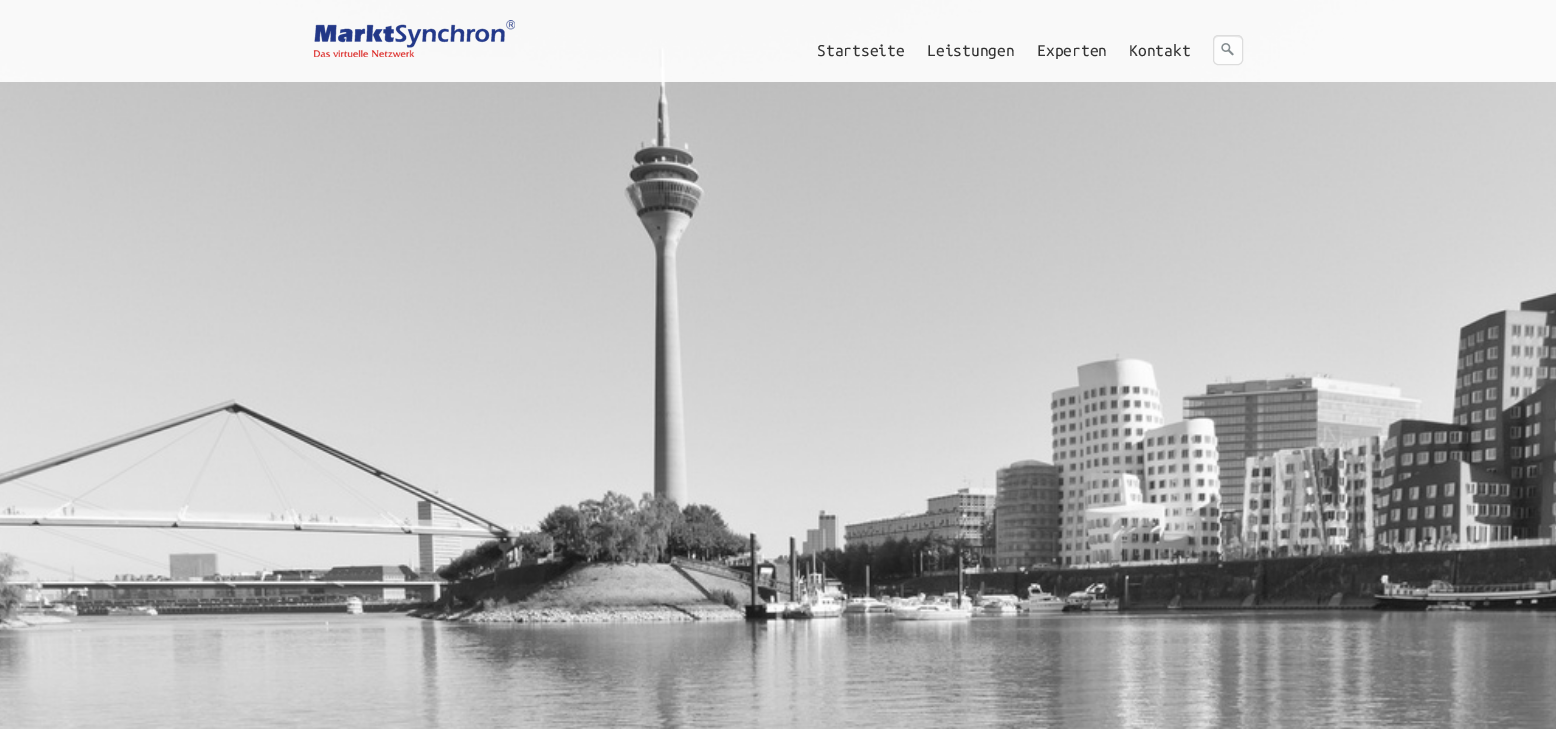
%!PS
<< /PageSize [1556 729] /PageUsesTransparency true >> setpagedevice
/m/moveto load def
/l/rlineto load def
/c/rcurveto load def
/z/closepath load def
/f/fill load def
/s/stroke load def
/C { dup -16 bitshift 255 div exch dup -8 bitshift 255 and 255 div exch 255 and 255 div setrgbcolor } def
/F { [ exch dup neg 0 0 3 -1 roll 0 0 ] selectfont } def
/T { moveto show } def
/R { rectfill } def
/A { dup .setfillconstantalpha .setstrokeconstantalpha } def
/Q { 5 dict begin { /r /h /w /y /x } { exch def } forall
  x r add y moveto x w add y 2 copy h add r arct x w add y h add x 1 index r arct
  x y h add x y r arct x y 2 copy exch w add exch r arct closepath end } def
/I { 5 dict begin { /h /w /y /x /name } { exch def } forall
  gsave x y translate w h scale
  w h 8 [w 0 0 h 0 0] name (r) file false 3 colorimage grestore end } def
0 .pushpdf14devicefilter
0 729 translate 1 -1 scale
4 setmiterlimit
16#FFFFFF C
0 0 1556 729 R
(1.rgb) 0 0 1556 729 I
0.9 A
0 0 1556 82 R
1 A
(2.rgb) 313 20 202 37 I
/UbuntuMono-Regular 17.5 F
16#333333 C
(Startseite) 817 56 T
(Leistungen) 927 56 T
(Experten) 1037 56 T
(Kontakt) 1129 56 T
16#FDFDFD C
1213 35 30 30 5 Q f
16#EAEAEA C
1218 37 m 17 0 l 4.5 0 6.5 1 7 3 c 0 -2.5 -2 -4 -4 -4 c -20 0 l -2 0 -4 2 -4 4 c 0 1 l .5 -2 1.5 -4 4 -4 c z f
16#DDDDDD C
1213.5 35.5 29 29 4.5 Q s
(3.rgb) 1221 43 13 13 I
.poppdf14devicefilter showpage
